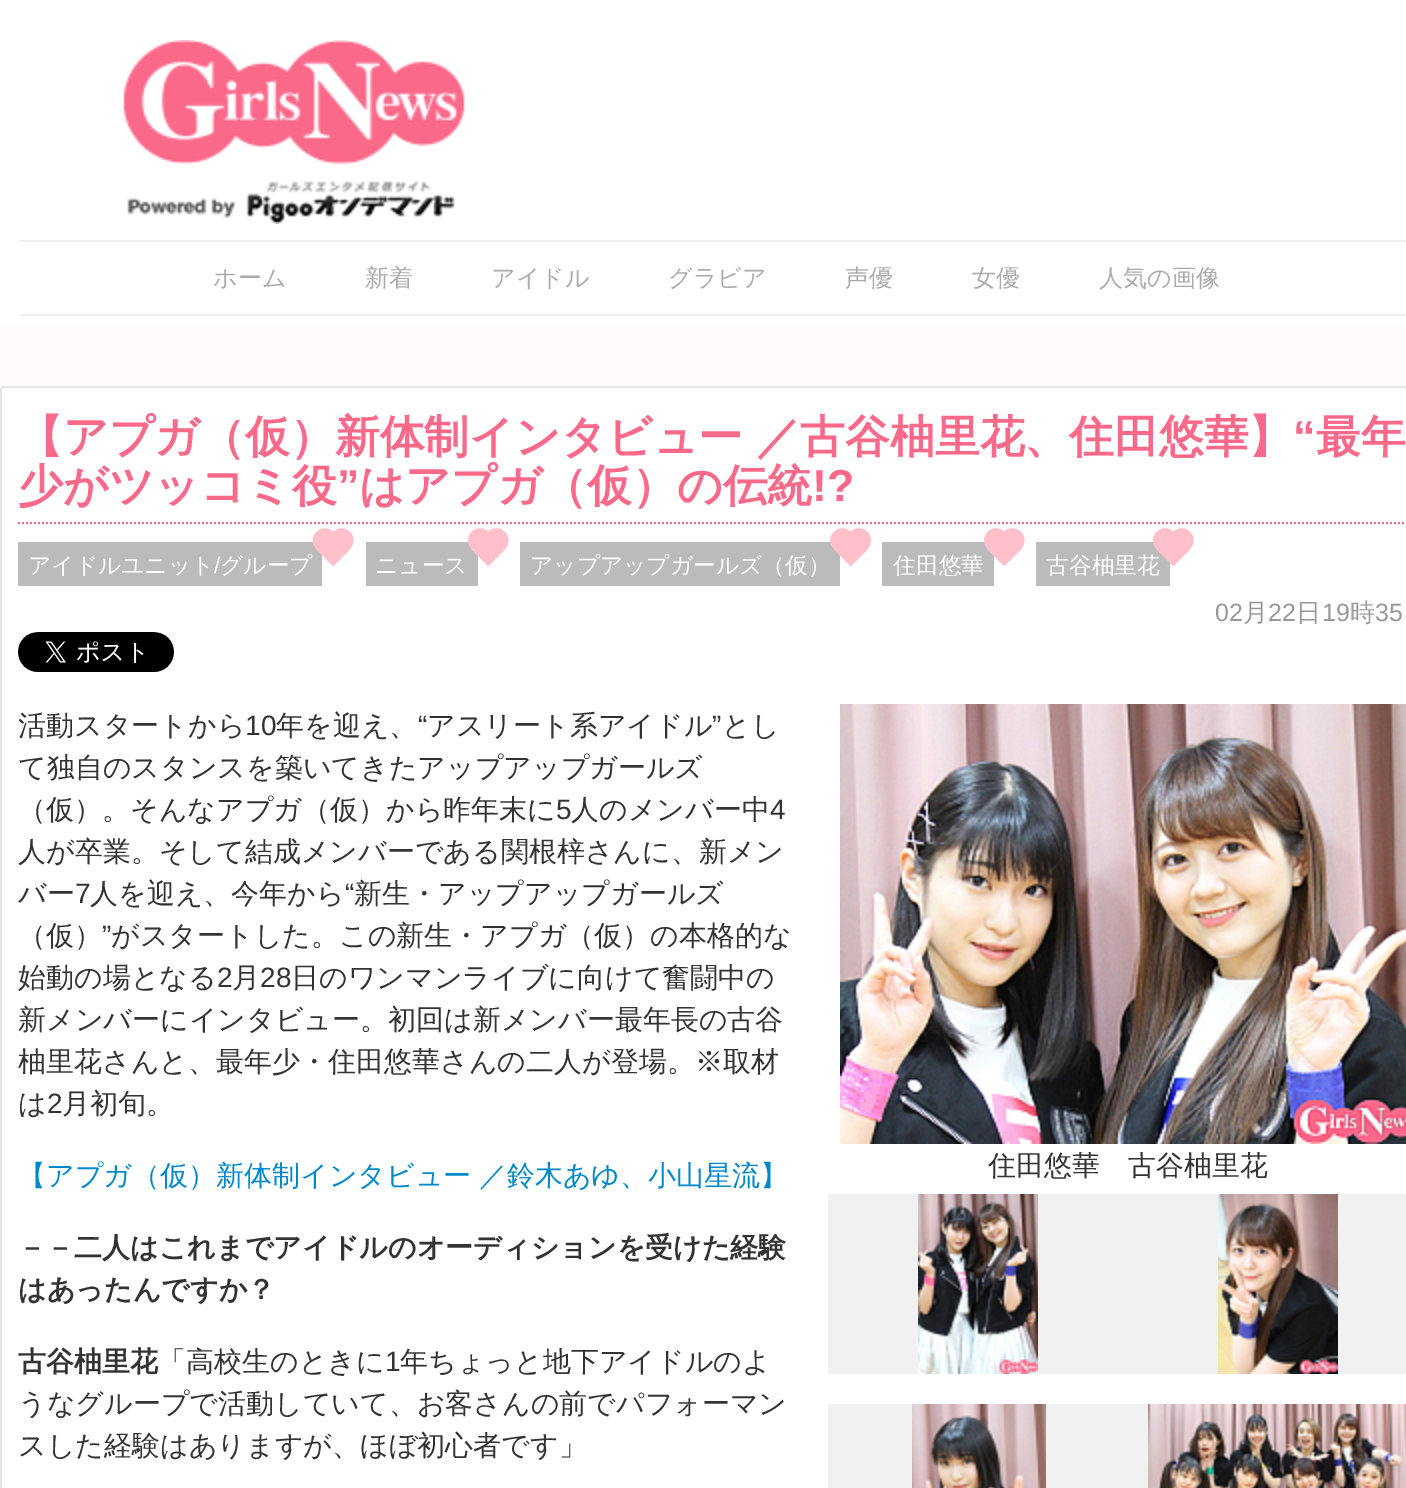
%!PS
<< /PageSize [1406 1488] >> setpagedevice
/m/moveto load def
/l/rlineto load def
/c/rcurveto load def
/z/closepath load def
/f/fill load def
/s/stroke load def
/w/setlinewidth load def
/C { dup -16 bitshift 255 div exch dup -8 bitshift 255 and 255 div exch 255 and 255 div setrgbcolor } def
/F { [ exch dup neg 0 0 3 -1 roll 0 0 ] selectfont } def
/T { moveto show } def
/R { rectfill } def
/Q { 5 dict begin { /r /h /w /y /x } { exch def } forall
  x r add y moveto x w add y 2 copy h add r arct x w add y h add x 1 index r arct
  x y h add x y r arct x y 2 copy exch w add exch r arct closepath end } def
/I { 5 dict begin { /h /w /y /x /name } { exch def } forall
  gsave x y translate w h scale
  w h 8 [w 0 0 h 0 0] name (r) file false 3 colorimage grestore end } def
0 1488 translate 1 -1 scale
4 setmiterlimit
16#FFFFFF C
0 0 1406 1488 R
(1.rgb) 123 40 342 184 I
16#EEEEEE C
20 240 1386 2 R
20 314 1386 2 R
/WenQuanYiZenHei-Medium 24 F
16#ABABAB C
(ホーム) 213 286 T
(新着) 365 286 T
(アイドル) 491 286 T
(グラビア) 668 286 T
(声優) 845 286 T
(女優) 972 286 T
(人気の画像) 1099 286 T
16#FFFBFB C
0 326 1406 64 R
16#FFFFFF C
4 386 m 1402 0 l 0 1102 l -1406 0 l 0 -1098 l 0 -2 2 -4 4 -4 c z f
16#E5E5E5 C
2 w
1 387 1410 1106 3 Q s
16#FA688A C
[2 2] 0 setdash
18 523 m 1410 0 l s
/WenQuanYiZenHei-Bold 44.8 F
18 452 m -1 0 32 (【アプガ（仮）新体制インタビュー ／古谷柚里花、住田悠華】) widthshow
/LiberationSans-Bold 44.8 F
(“) 1293 452 T
/WenQuanYiZenHei-Bold 44.8 F
(最年) 1316 452 T
(少がツッコミ役) 18 501 T
/LiberationSans-Bold 44.8 F
(”) 337 501 T
/WenQuanYiZenHei-Bold 44.8 F
(はアプガ（仮）の伝統) 359 501 T
/LiberationSans-Bold 44.8 F
(!?) 812 501 T
16#BBBBBB C
18 542 304 44 R
/WenQuanYiZenHei-Medium 22.75 F
16#FFFFFF C
(アイドルユニット) 28 573 T
/LiberationSans-Regular 22.75 F
(/) 214 573 T
/WenQuanYiZenHei-Medium 22.75 F
(グループ) 220 573 T
16#FFC0CB C
316.5 532 m 4.5 -5 12 -5 17 0 c 16.5 17 l -16.5 17 l -17 -17 l -5 -5 -5 -12.5 0 -17 c z f
350 532 m 4.5 4.5 4.5 12 0 17 c -17 17 l -17 -17 l 17 -17 l 4.5 -5 12 -5 17 0 c z f
16#BBBBBB C
366 542 112 44 R
16#FFFFFF C
(ニュース) 375 573 T
16#FFC0CB C
471.5 532 m 4.5 -5 12.5 -5 17 0 c 17 17 l -17 17 l -17 -17 l -4.5 -5 -4.5 -12.5 0 -17 c z f
505 532 m 4.5 4.5 4.5 12 0 17 c -17 17 l -17 -17 l 17 -17 l 4.5 -5 12.5 -5 17 0 c z f
16#BBBBBB C
520 542 320 44 R
16#FFFFFF C
(アップアップガールズ（仮）) 530 573 T
16#FFC0CB C
834 532 m 4.5 -5 12 -5 17 0 c 17 17 l -17 17 l -17 -17 l -5 -5 -5 -12.5 0 -17 c z f
867.5 532 m 4.5 4.5 4.5 12 0 17 c -17 17 l -17 -17 l 17 -17 l 4.5 -5 12 -5 17 0 c z f
16#BBBBBB C
882 542 112 44 R
16#FFFFFF C
(住田悠華) 893 573 T
16#FFC0CB C
987.5 532 m 4.5 -5 12 -5 17 0 c 17 17 l -17 17 l -17 -17 l -4.5 -5 -4.5 -12.5 0 -17 c z f
1021 532 m 4.5 4.5 4.5 12 0 17 c -17 17 l -17 -17 l 17 -17 l 4.5 -5 12 -5 17 0 c z f
16#BBBBBB C
1036 542 134 44 R
16#FFFFFF C
(古谷柚里花) 1046 573 T
16#FFC0CB C
1156.5 532 m 5 -5 12.5 -5 17 0 c 17 17 l -17 17 l -17 -17 l -4.5 -5 -4.5 -12.5 0 -17 c z f
1190 532 m 5 4.5 5 12 0 17 c -17 17 l -16.5 -17 l 16.5 -17 l 5 -5 12.5 -5 17 0 c z f
/LiberationSans-Regular 25 F
16#999999 C
(02) 1215 621 T
/WenQuanYiZenHei-Medium 25 F
(月) 1243 621 T
/LiberationSans-Regular 25 F
(22) 1268 621 T
/WenQuanYiZenHei-Medium 25 F
(日) 1296 621 T
/LiberationSans-Regular 25 F
(19) 1322 621 T
/WenQuanYiZenHei-Medium 25 F
(時) 1350 621 T
/LiberationSans-Regular 25 F
(35) 1375 621 T
(2.rgb) 18 632 156 40 I
/WenQuanYiZenHei-Medium 28 F
16#333333 C
(活動スタートから) 18 735 T
/LiberationSans-Regular 28 F
(10) 245 735 T
/WenQuanYiZenHei-Medium 28 F
(年を迎え、) 276 735 T
/LiberationSans-Regular 28 F
(“) 418 735 T
/WenQuanYiZenHei-Medium 28 F
(アスリート系アイドル) 427 735 T
/LiberationSans-Regular 28 F
(”) 712 735 T
/WenQuanYiZenHei-Medium 28 F
(とし) 722 735 T
(て独自のスタンスを築いてきたアップアップガールズ) 18 777 T
(（仮）。そんなアプガ（仮）から昨年末に) 18 819 T
/LiberationSans-Regular 28 F
(5) 556 819 T
/WenQuanYiZenHei-Medium 28 F
(人のメンバー中) 571 819 T
/LiberationSans-Regular 28 F
(4) 770 819 T
/WenQuanYiZenHei-Medium 28 F
(人が卒業。そして結成メンバーである関根梓さんに、新メン) 18 861 T
(バー) 18 903 T
/LiberationSans-Regular 28 F
(7) 75 903 T
/WenQuanYiZenHei-Medium 28 F
(人を迎え、今年から) 90 903 T
/LiberationSans-Regular 28 F
(“) 345 903 T
/WenQuanYiZenHei-Medium 28 F
(新生・アップアップガールズ) 354 903 T
(（仮）) 18 945 T
/LiberationSans-Regular 28 F
(”) 102 945 T
/WenQuanYiZenHei-Medium 28 F
(がスタートした。この新生・アプガ（仮）の本格的な) 111 945 T
(始動の場となる) 18 987 T
/LiberationSans-Regular 28 F
(2) 217 987 T
/WenQuanYiZenHei-Medium 28 F
(月) 232 987 T
/LiberationSans-Regular 28 F
(28) 260 987 T
/WenQuanYiZenHei-Medium 28 F
(日のワンマンライブに向けて奮闘中の) 291 987 T
(新メンバーにインタビュー。初回は新メンバー最年長の古谷) 18 1029 T
(柚里花さんと、最年少・住田悠華さんの二人が登場。※取材) 18 1071 T
(は) 18 1113 T
/LiberationSans-Regular 28 F
(2) 47 1113 T
/WenQuanYiZenHei-Medium 28 F
(月初旬。) 62 1113 T
16#0088CC C
18 1185 m -1 0 32 (【アプガ（仮）新体制インタビュー ／鈴木あゆ、小山星流】) widthshow
(3.rgb) 840 704 566 440 I
16#333333 C
(住田悠華　古谷柚里花) 988 1175 T
16#F1F1F1 C
828 1194 578 180 R
(4.rgb) 918 1194 120 180 I
(5.rgb) 1218 1194 120 180 I
828 1404 320 84 R
(6.rgb) 912 1404 134 84 I
(7.rgb) 1148 1404 258 84 I
/WenQuanYiZenHei-Bold 28 F
16#333333 C
(－－二人はこれまでアイドルのオーディションを受けた経験) 18 1257 T
(はあったんですか？) 18 1299 T
(古谷柚里花) 18 1371 T
/WenQuanYiZenHei-Medium 28 F
(「高校生のときに) 158 1371 T
/LiberationSans-Regular 28 F
(1) 385 1371 T
/WenQuanYiZenHei-Medium 28 F
(年ちょっと地下アイドルのよ) 400 1371 T
(うなグループで活動していて、お客さんの前でパフォーマン) 18 1413 T
(スした経験はありますが、ほぼ初心者です」) 18 1455 T
showpage
